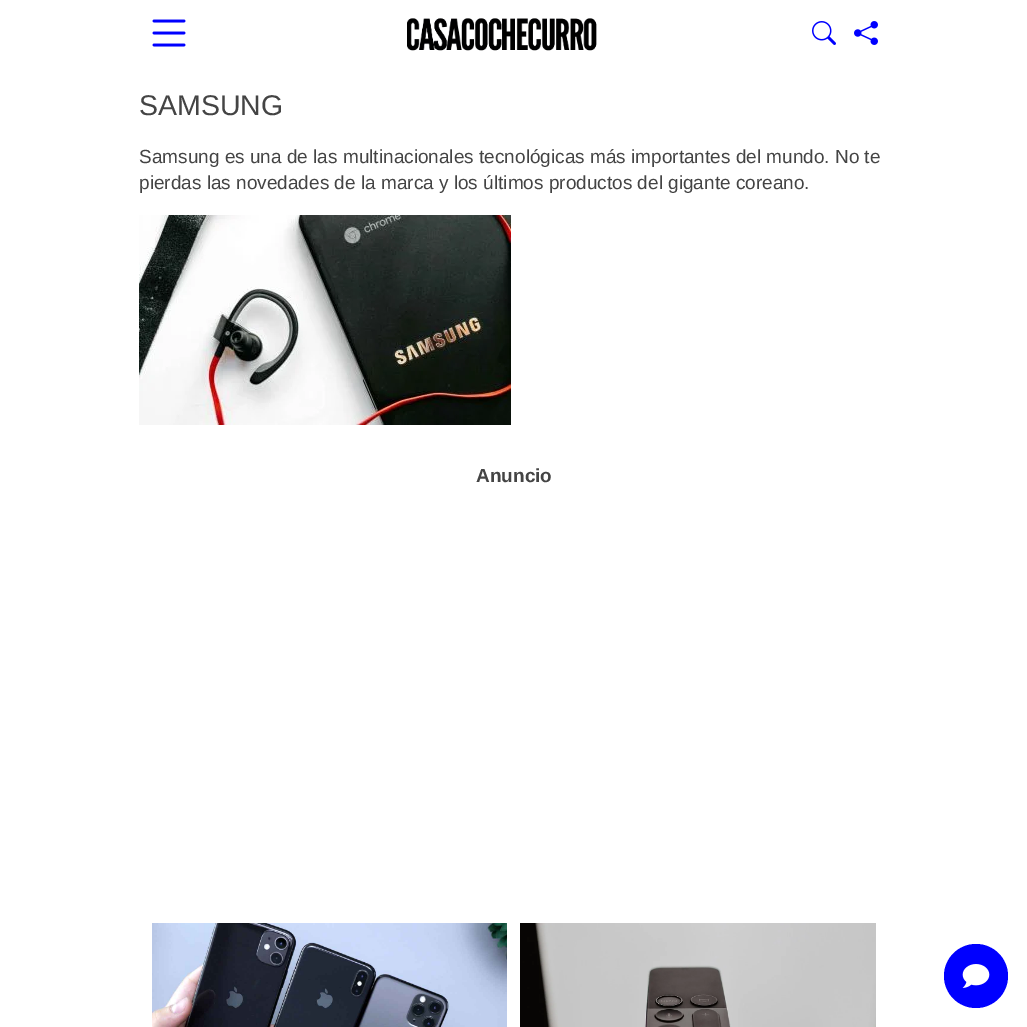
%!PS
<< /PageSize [1027 1027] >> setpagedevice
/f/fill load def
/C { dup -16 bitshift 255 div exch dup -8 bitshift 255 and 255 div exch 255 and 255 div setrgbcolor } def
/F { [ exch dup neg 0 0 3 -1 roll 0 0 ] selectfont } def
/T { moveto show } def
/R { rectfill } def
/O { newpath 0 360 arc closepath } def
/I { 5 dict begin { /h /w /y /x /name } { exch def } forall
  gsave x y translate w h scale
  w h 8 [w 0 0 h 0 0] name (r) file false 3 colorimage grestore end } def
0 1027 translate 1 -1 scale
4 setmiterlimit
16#FFFFFF C
0 0 1027 1027 R
(1.rgb) 152 19 34 28 I
(2.rgb) 407 18 190 33 I
(3.rgb) 812 21 24 24 I
(4.rgb) 854 21 24 24 I
/Arimo-Regular 28.5 F
16#444444 C
(SAMSUNG) 139 115 T
/Arimo-Regular 19 F
(Samsung es una de las multinacionales tecnológicas más importantes del mundo. No te) 139 163 T
(pierdas las novedades de la marca y los últimos productos del gigante coreano.) 139 189 T
(5.rgb) 139 215 372 210 I
/Arimo-Bold 19 F
(Anuncio) 476 482 T
(6.rgb) 152 923 355 104 I
(7.rgb) 520 923 356 104 I
16#0000FF C
976 976 32 O f
(8.rgb) 962 964 28 24 I
showpage
